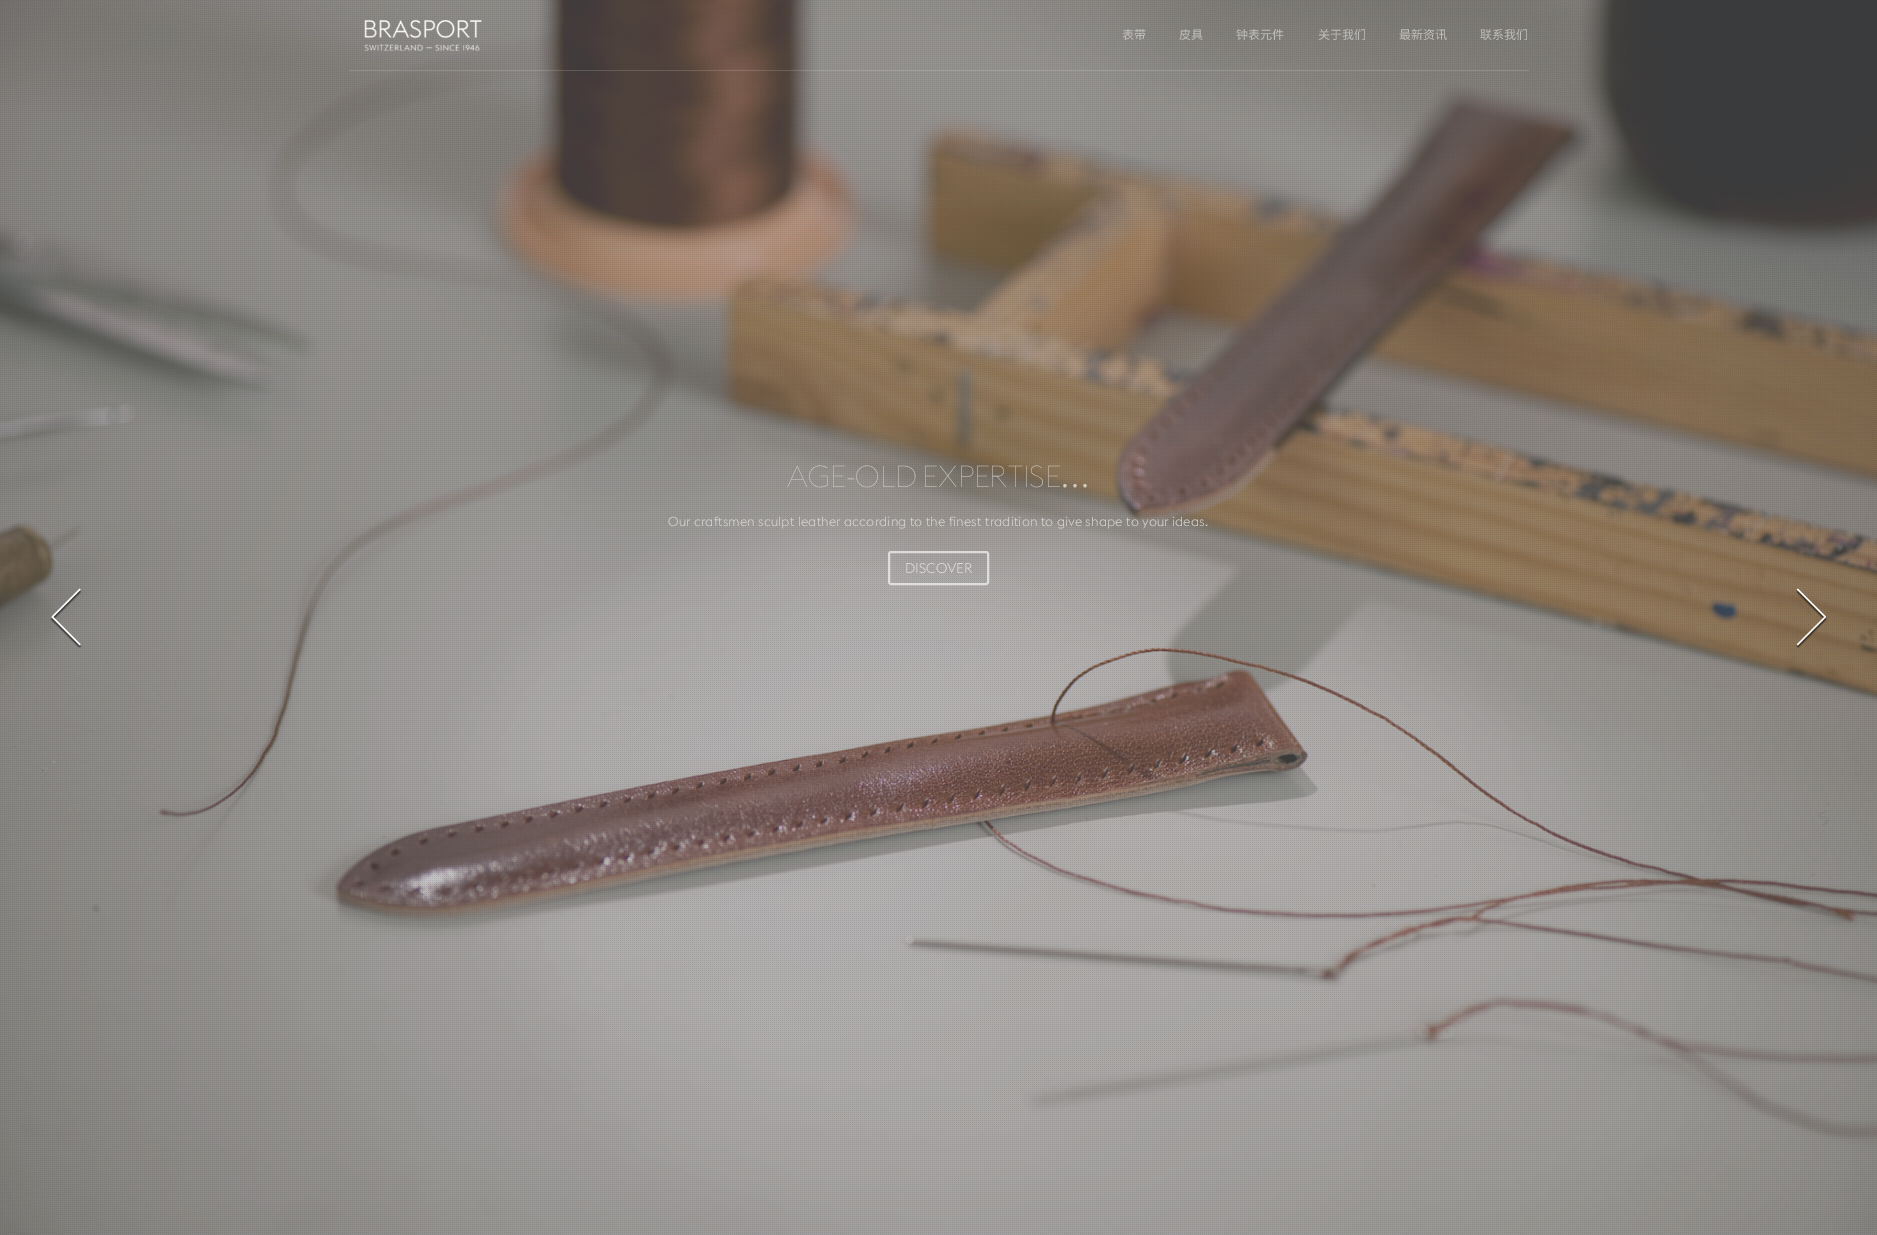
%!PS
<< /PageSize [1877 1235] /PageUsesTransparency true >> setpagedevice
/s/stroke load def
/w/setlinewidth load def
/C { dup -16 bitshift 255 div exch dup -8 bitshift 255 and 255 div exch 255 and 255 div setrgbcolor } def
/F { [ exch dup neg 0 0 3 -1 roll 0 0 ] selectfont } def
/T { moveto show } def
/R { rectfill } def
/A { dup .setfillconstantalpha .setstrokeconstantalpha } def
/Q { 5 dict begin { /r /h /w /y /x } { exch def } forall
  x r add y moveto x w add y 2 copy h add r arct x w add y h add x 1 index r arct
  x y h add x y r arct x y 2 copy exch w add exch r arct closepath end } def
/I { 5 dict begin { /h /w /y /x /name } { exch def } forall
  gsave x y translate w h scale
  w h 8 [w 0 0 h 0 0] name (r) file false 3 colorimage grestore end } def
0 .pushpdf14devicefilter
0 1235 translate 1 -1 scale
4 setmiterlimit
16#FFFFFF C
0 0 1877 1235 R
(2.rgb) 0 0 1877 1235 I
(3.rgb) 0 0 1877 1235 I
0.15 A
349 70 1180 1 R
1 A
(1.rgb) 364 20 118 31 I
/NotoSansCJKSC-Regular 12 F
16#C0BFBD C
(表带) 1122 39 T
(皮具) 1179 39 T
(钟表元件) 1236 39 T
(关于我们) 1318 39 T
(最新资讯) 1399 39 T
(联系我们) 1480 39 T
/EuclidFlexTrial-ExtraLight 30 F
16#D2CECA C
(AGE-OLD EXPERTISE) 787 487 T
/LiberationSerif-Regular 30 F
16#D1CAC1 C
(…) 1060 487 T
/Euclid-Light 13 F
16#D8D6D5 C
(Our craftsmen sculpt leather according to the finest tradition to give shape to your ideas.) 668 526 T
0.63 A
16#FFFFFF C
2 w
889 552 99 32 2 Q s
/Euclid-Light 14 F
1 A
16#DEDCDC C
(DISCOVER) 905 573 T
(4.rgb) 50 588 32 60 I
(5.rgb) 1796 588 31 60 I
.poppdf14devicefilter showpage
